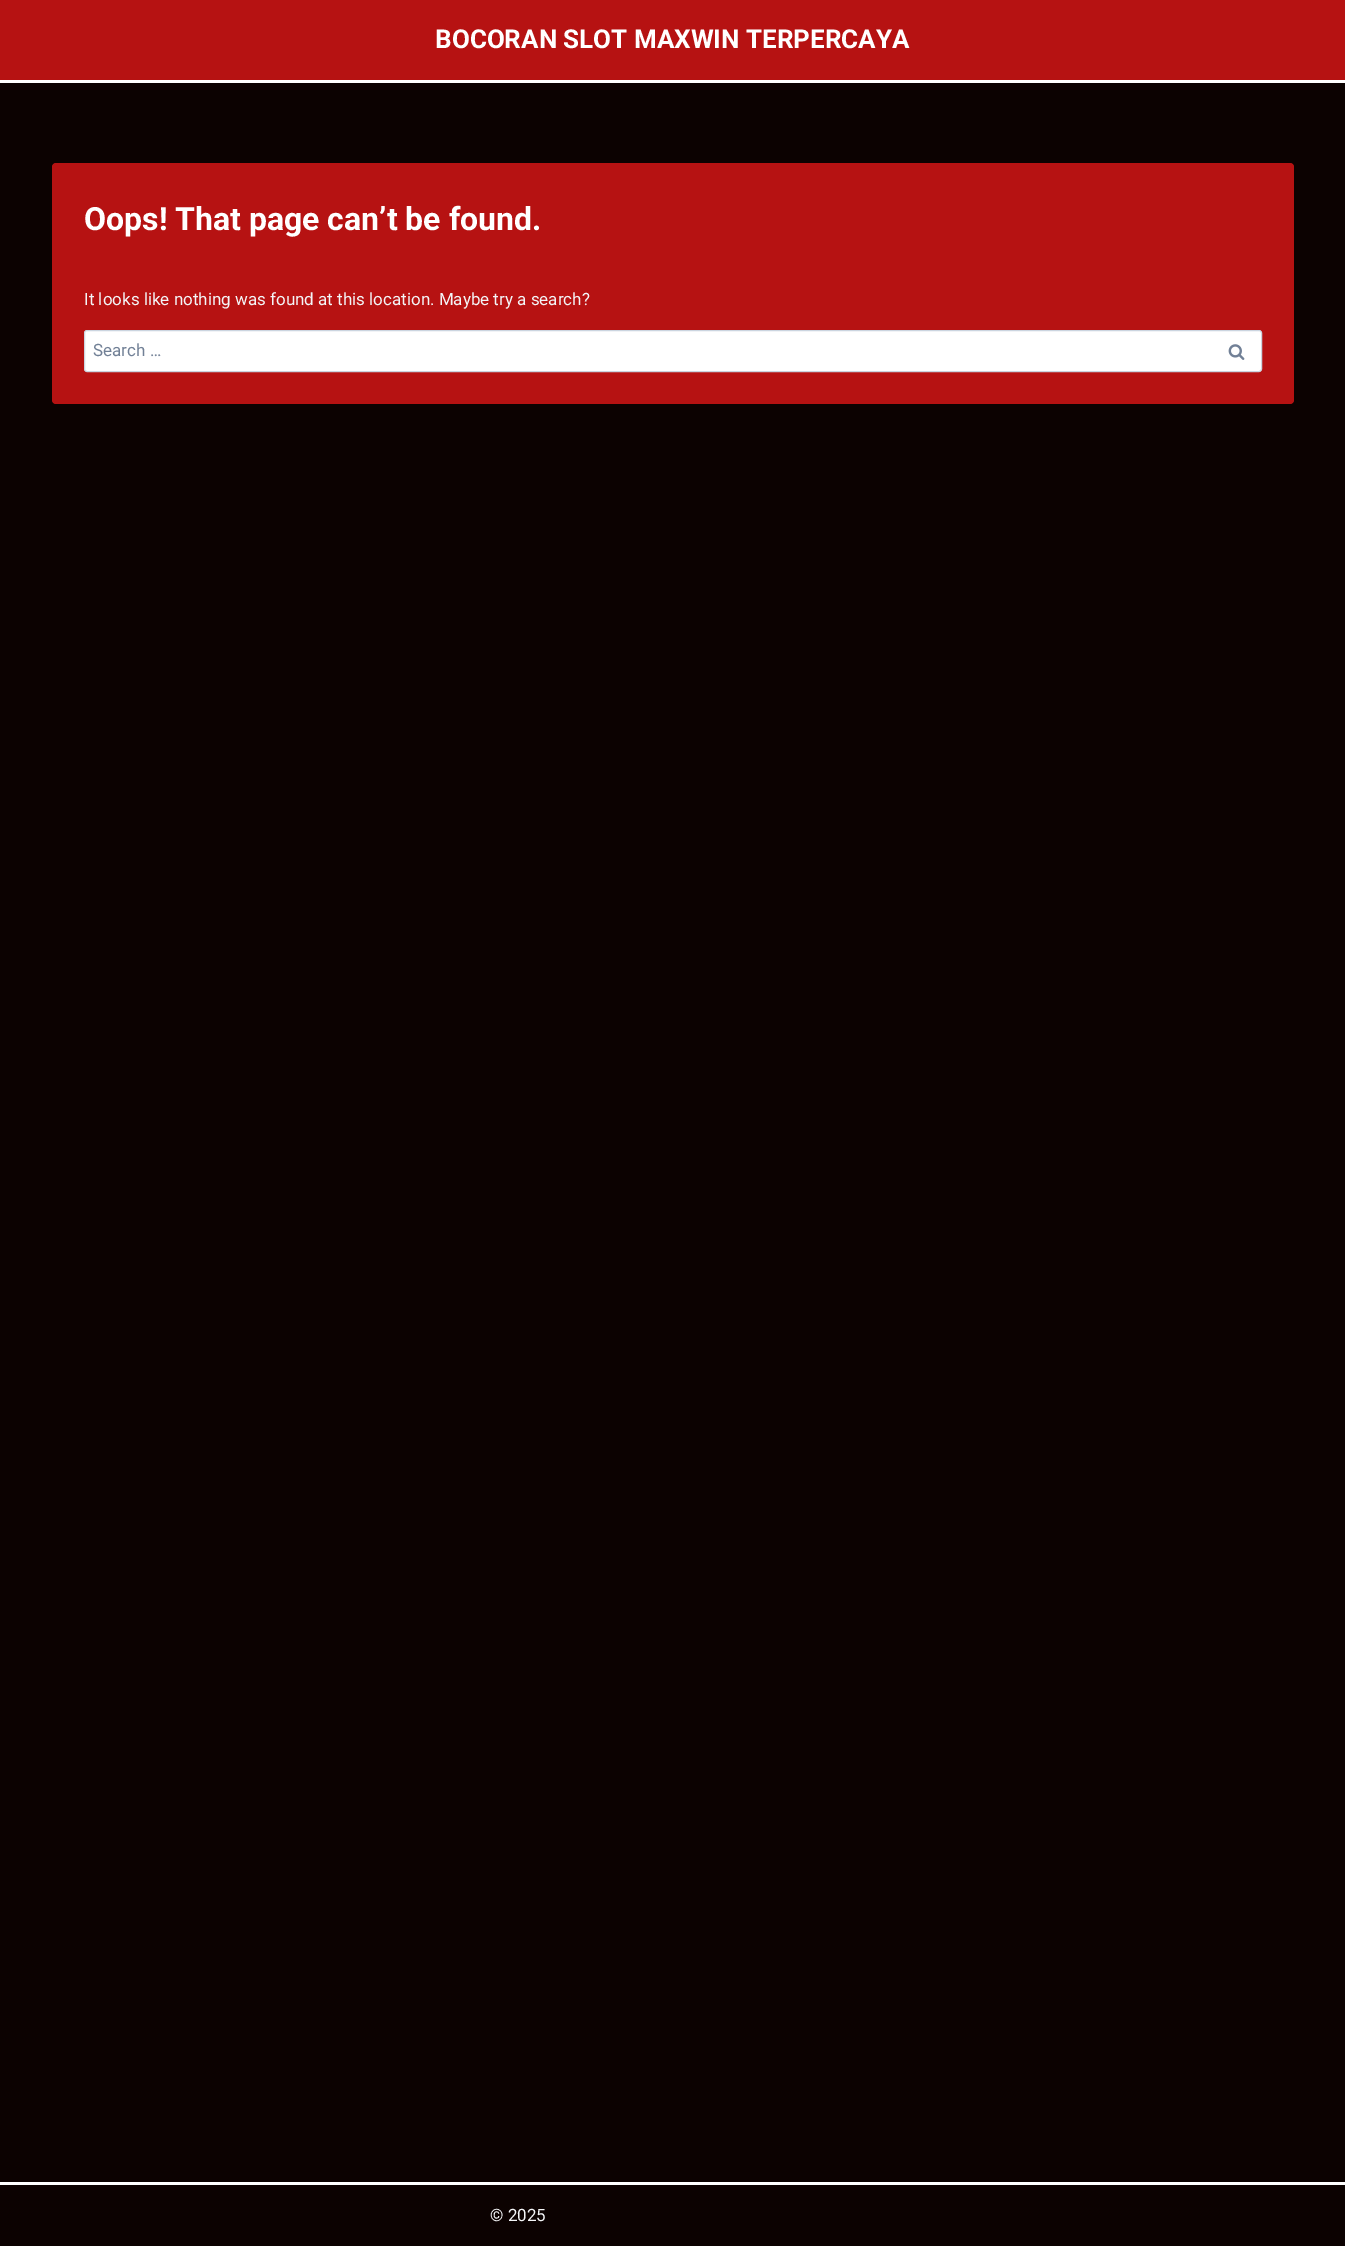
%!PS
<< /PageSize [1345 2246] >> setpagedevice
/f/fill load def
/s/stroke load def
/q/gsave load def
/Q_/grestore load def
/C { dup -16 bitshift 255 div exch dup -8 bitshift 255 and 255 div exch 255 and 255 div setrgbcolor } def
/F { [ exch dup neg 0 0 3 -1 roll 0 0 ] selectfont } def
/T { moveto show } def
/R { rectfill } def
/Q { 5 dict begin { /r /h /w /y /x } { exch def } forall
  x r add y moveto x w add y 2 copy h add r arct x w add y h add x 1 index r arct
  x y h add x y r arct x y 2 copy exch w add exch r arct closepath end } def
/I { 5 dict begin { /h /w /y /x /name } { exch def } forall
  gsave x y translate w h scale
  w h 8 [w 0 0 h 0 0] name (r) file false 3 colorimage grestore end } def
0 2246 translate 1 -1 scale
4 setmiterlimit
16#0C0201 C
0 0 1345 2246 R
16#B61212 C
0 0 1345 80 R
16#FFFFFF C
0 80 1345 3 R
/Roboto-Bold 26 F
(BOCORAN SLOT MAXWIN TERPERCAYA) 435 48 T
16#B61212 C
52 163 1242 241 4 Q f
/Roboto-Bold 32 F
16#FFFFFF C
(Oops! That page can’t be found.) 84 230 T
/Roboto-Regular 17 F
16#F4F5F7 C
(It looks like nothing was found at this location. Maybe try a search?) 84 305 T
16#FFFFFF C
84.5 330.5 1177 41 2.5 Q q f Q_
16#CBD5E0 C
s
16#718096 C
(Search …) 93 356 T
(1.rgb) 1228 344 17 16 I
16#FFFFFF C
0 2182 1345 3 R
16#F4F5F7 C
(© 2025) 490 2221 T
showpage
